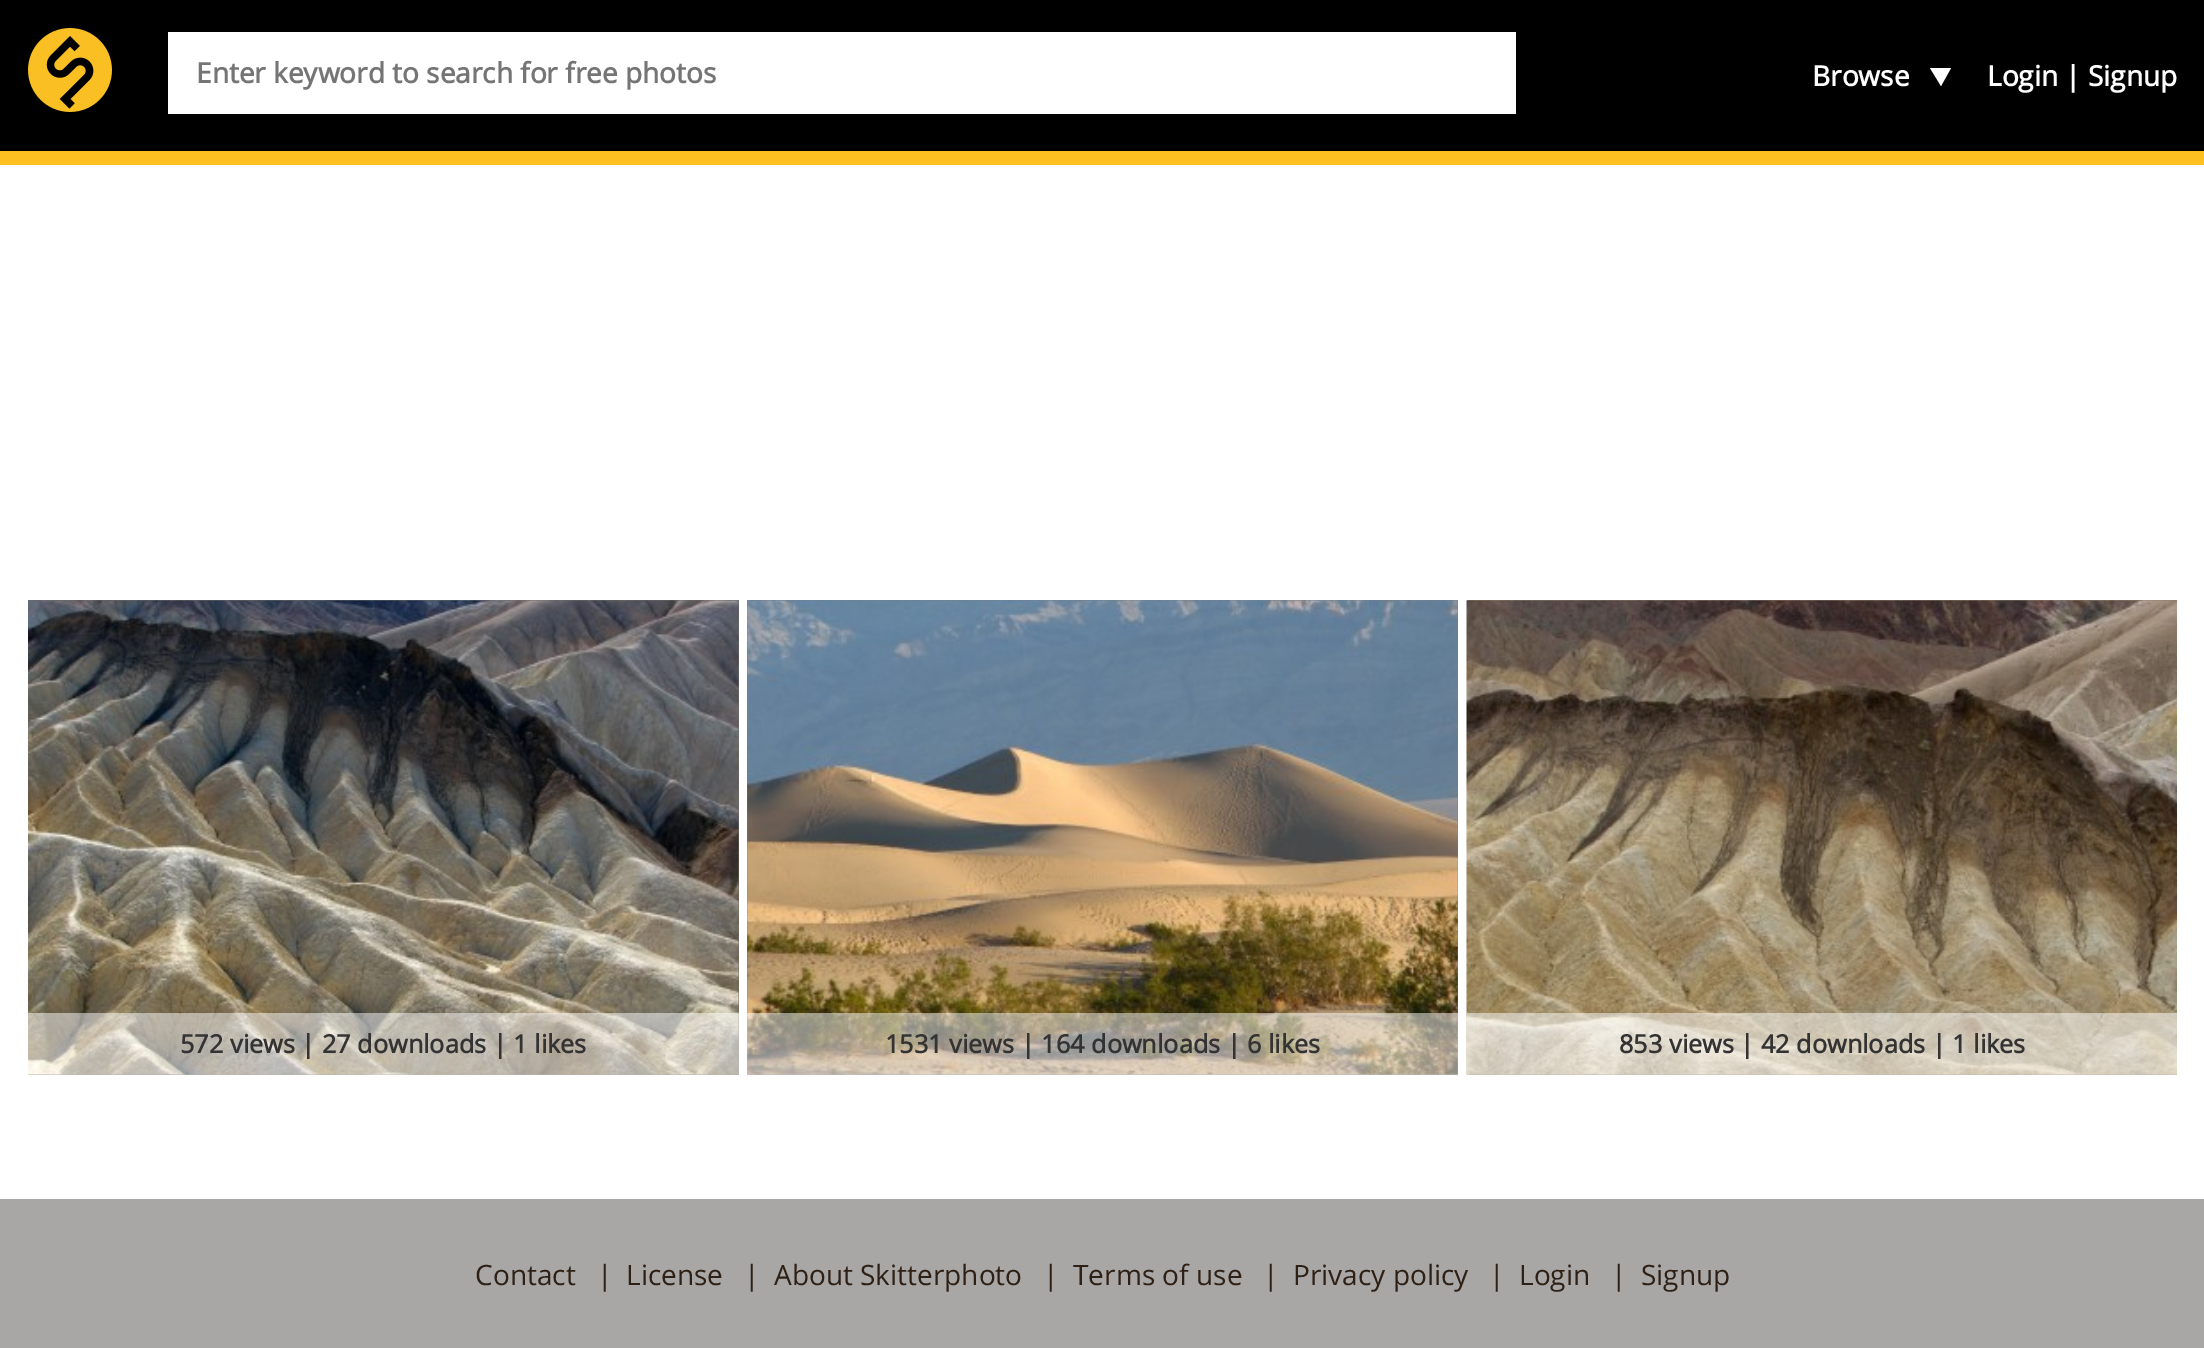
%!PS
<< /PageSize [2204 1348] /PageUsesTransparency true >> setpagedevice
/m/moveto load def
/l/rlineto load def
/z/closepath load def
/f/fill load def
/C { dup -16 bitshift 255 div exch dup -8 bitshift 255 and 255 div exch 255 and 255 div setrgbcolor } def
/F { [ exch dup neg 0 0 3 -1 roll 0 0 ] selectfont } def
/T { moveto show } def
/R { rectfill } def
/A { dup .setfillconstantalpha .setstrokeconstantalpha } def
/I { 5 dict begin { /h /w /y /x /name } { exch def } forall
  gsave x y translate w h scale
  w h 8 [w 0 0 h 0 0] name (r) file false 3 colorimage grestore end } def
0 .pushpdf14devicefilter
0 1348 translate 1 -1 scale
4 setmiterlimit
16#A8A7A5 C
0 0 2204 1348 R
16#000000 C
0 0 2204 151 R
16#FCC021 C
0 151 2204 14 R
(1.rgb) 28 28 84 84 I
16#FFFFFF C
168 32 1348 82 R
/OpenSans-Bold 28 F
16#757575 C
(Enter keyword to search for free photos) 196 83 T
16#FFFFFF C
(Browse) 1812 86 T
1930 68 m 21 0 l -10 18 l z f
(Login | Signup) 1987 86 T
0 165 2204 1034 R
16#6E695F C
28 600 711 475 R
(2.rgb) 28 600 711 475 I
0.5 A
16#FFFFFF C
28 1013 711 62 R
/OpenSans-Bold 25.25 F
1 A
16#333333 C
(572 views | 27 downloads | 1 likes) 180 1053 T
16#757E85 C
747 600 711 475 R
(3.rgb) 747 600 711 475 I
0.5 A
16#FFFFFF C
747 1013 711 62 R
1 A
16#333333 C
(1531 views | 164 downloads | 6 likes) 885 1053 T
16#8D7D64 C
1467 600 710 475 R
(4.rgb) 1466 600 711 475 I
0.5 A
16#FFFFFF C
1467 1013 710 62 R
1 A
16#333333 C
(853 views | 42 downloads | 1 likes) 1619 1053 T
/OpenSans-Regular 28 F
16#2E2014 C
(Contact) 475 1285 T
(|) 597 1285 T
(License) 626 1285 T
(|) 744 1285 T
(About Skitterphoto) 774 1285 T
(|) 1043 1285 T
(Terms of use) 1073 1285 T
(|) 1263 1285 T
(Privacy policy) 1293 1285 T
(|) 1489 1285 T
(Login) 1519 1285 T
(|) 1611 1285 T
(Signup) 1641 1285 T
.poppdf14devicefilter showpage
